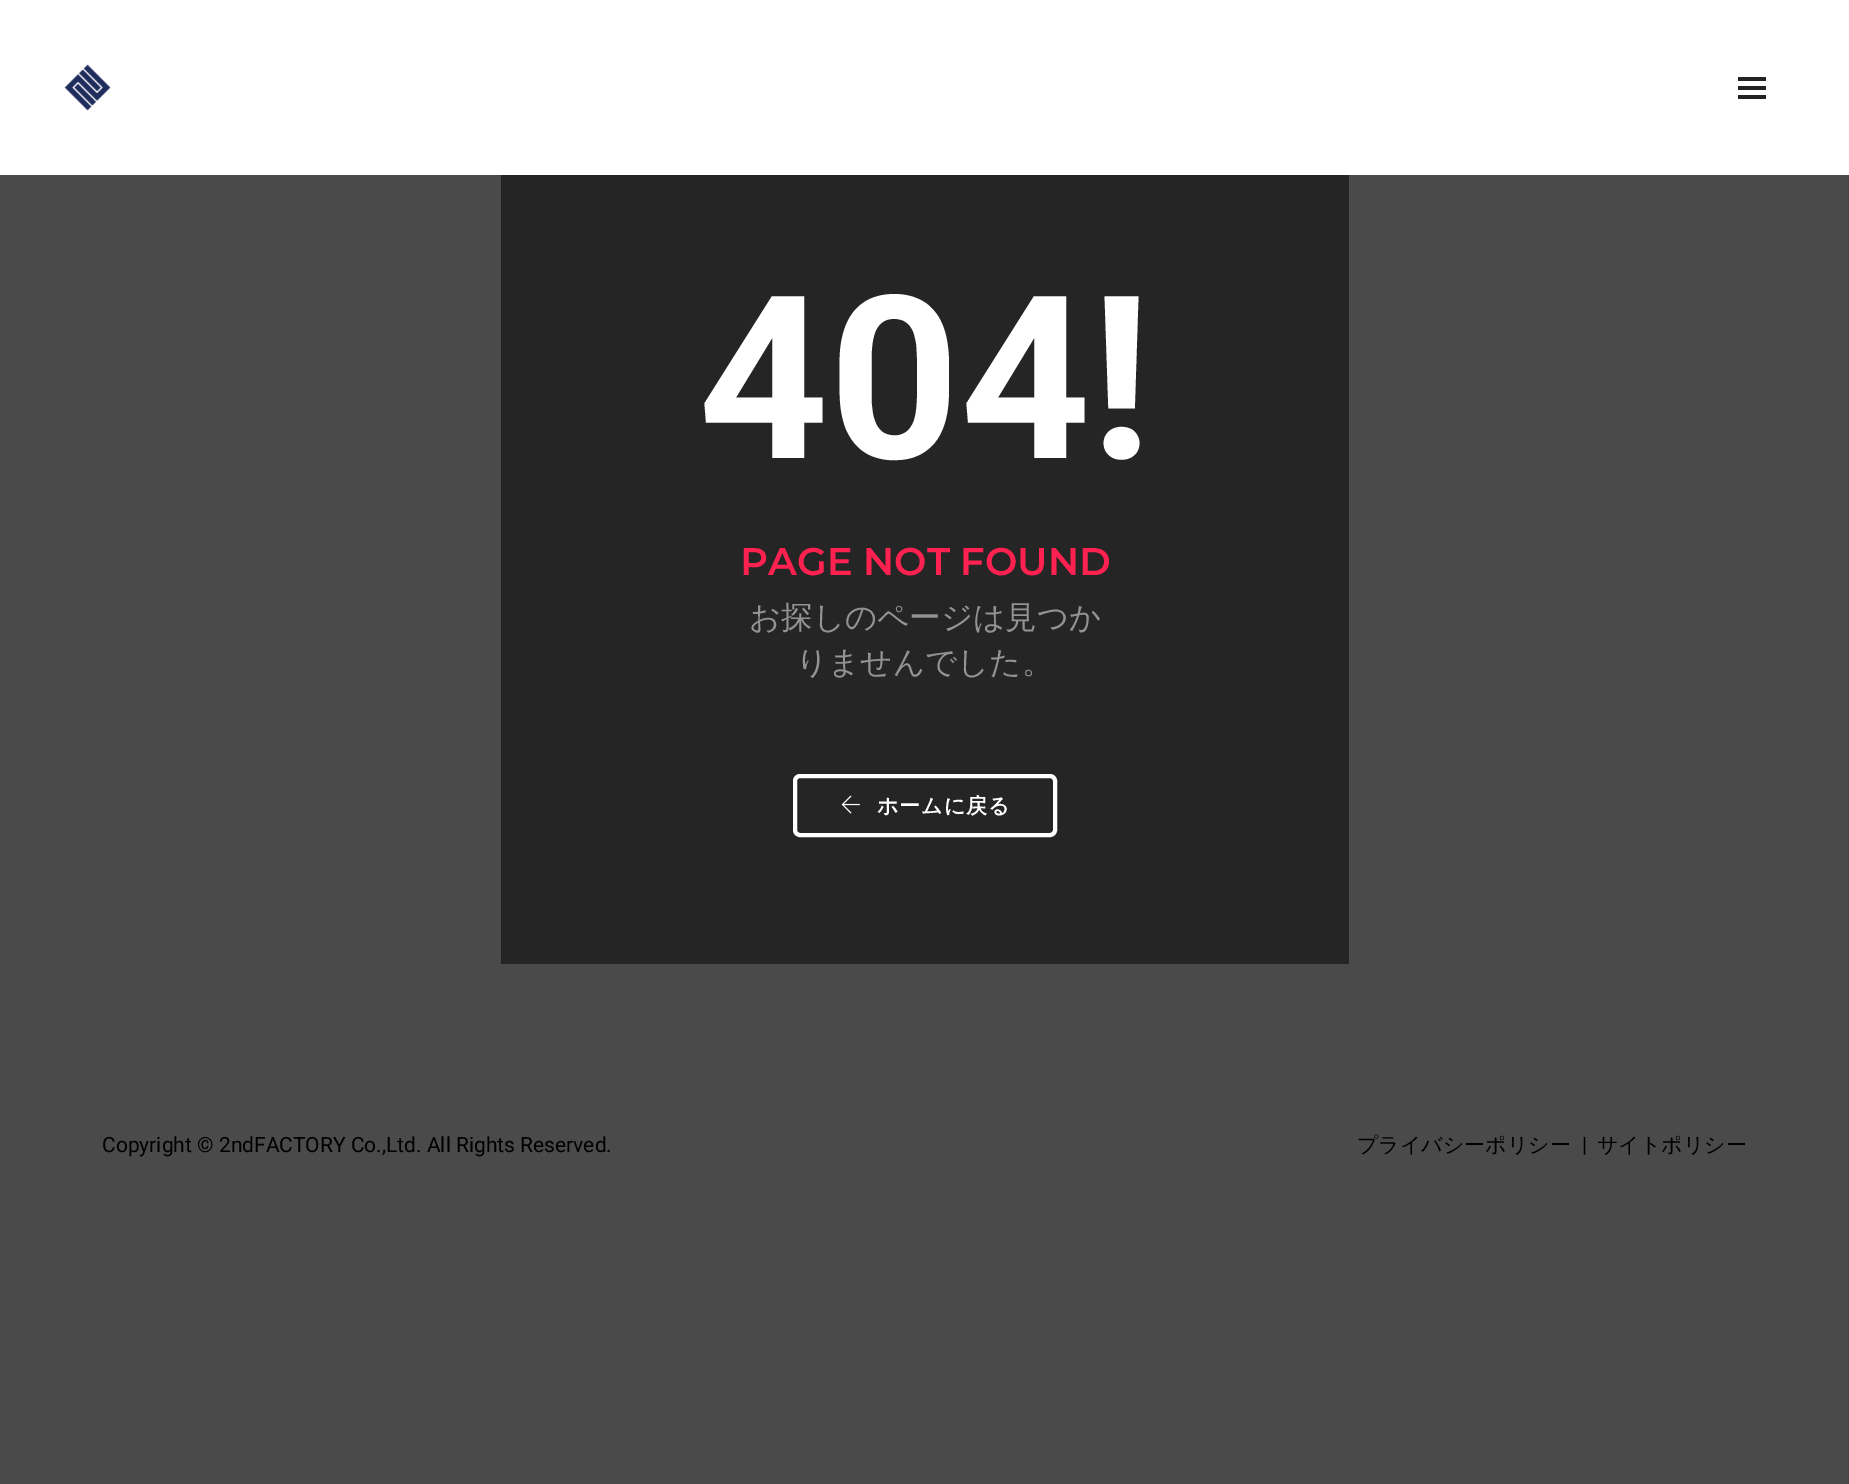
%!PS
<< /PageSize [1849 1484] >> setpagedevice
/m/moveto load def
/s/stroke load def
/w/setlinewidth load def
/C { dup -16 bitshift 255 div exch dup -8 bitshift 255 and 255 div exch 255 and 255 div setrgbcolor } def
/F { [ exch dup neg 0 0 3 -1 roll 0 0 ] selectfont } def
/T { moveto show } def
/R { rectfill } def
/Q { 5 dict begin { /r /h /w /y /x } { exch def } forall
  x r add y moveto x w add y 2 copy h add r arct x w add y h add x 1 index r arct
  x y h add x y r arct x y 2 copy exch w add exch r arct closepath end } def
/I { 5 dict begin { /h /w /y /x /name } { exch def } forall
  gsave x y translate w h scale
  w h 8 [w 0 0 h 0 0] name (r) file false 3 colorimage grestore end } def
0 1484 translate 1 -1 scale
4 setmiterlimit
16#4A4A4A C
0 0 1849 1484 R
16#FFFFFF C
0 0 1849 175 R
(1.rgb) 64 64 47 47 I
16#232323 C
1738 77 28 4 R
1738 86 28 4 R
1738 95 28 4 R
16#252525 C
501 175 848 789 R
/Roboto-Bold 228 F
16#FFFFFF C
(404!) 698 458 T
/Montserrat-SemiBold 38.5 F
16#FF214F C
(PAGE NOT FOUND) 740 575 T
/WenQuanYiZenHei-Medium 31.5 F
16#939393 C
(お探しのページは見つか) 749 628 T
(りませんでした。) 796 673 T
16#FFFFFF C
4 w
795 776 260 59 5 Q s
(2.rgb) 841 795 19 19 I
/WenQuanYiZenHei-Bold 21 F
877 813 m 1 0 (ホームに戻る) ashow
/Roboto-Regular 21 F
16#000000 C
(Copyright © 2ndFACTORY Co.,Ltd. All Rights Reserved.) 102 1152 T
/WenQuanYiZenHei-Medium 21 F
(プライバシーポリシー) 1357 1152 T
/Roboto-Regular 21 F
(|) 1582 1152 T
/WenQuanYiZenHei-Medium 21 F
(サイトポリシー) 1597 1152 T
showpage
